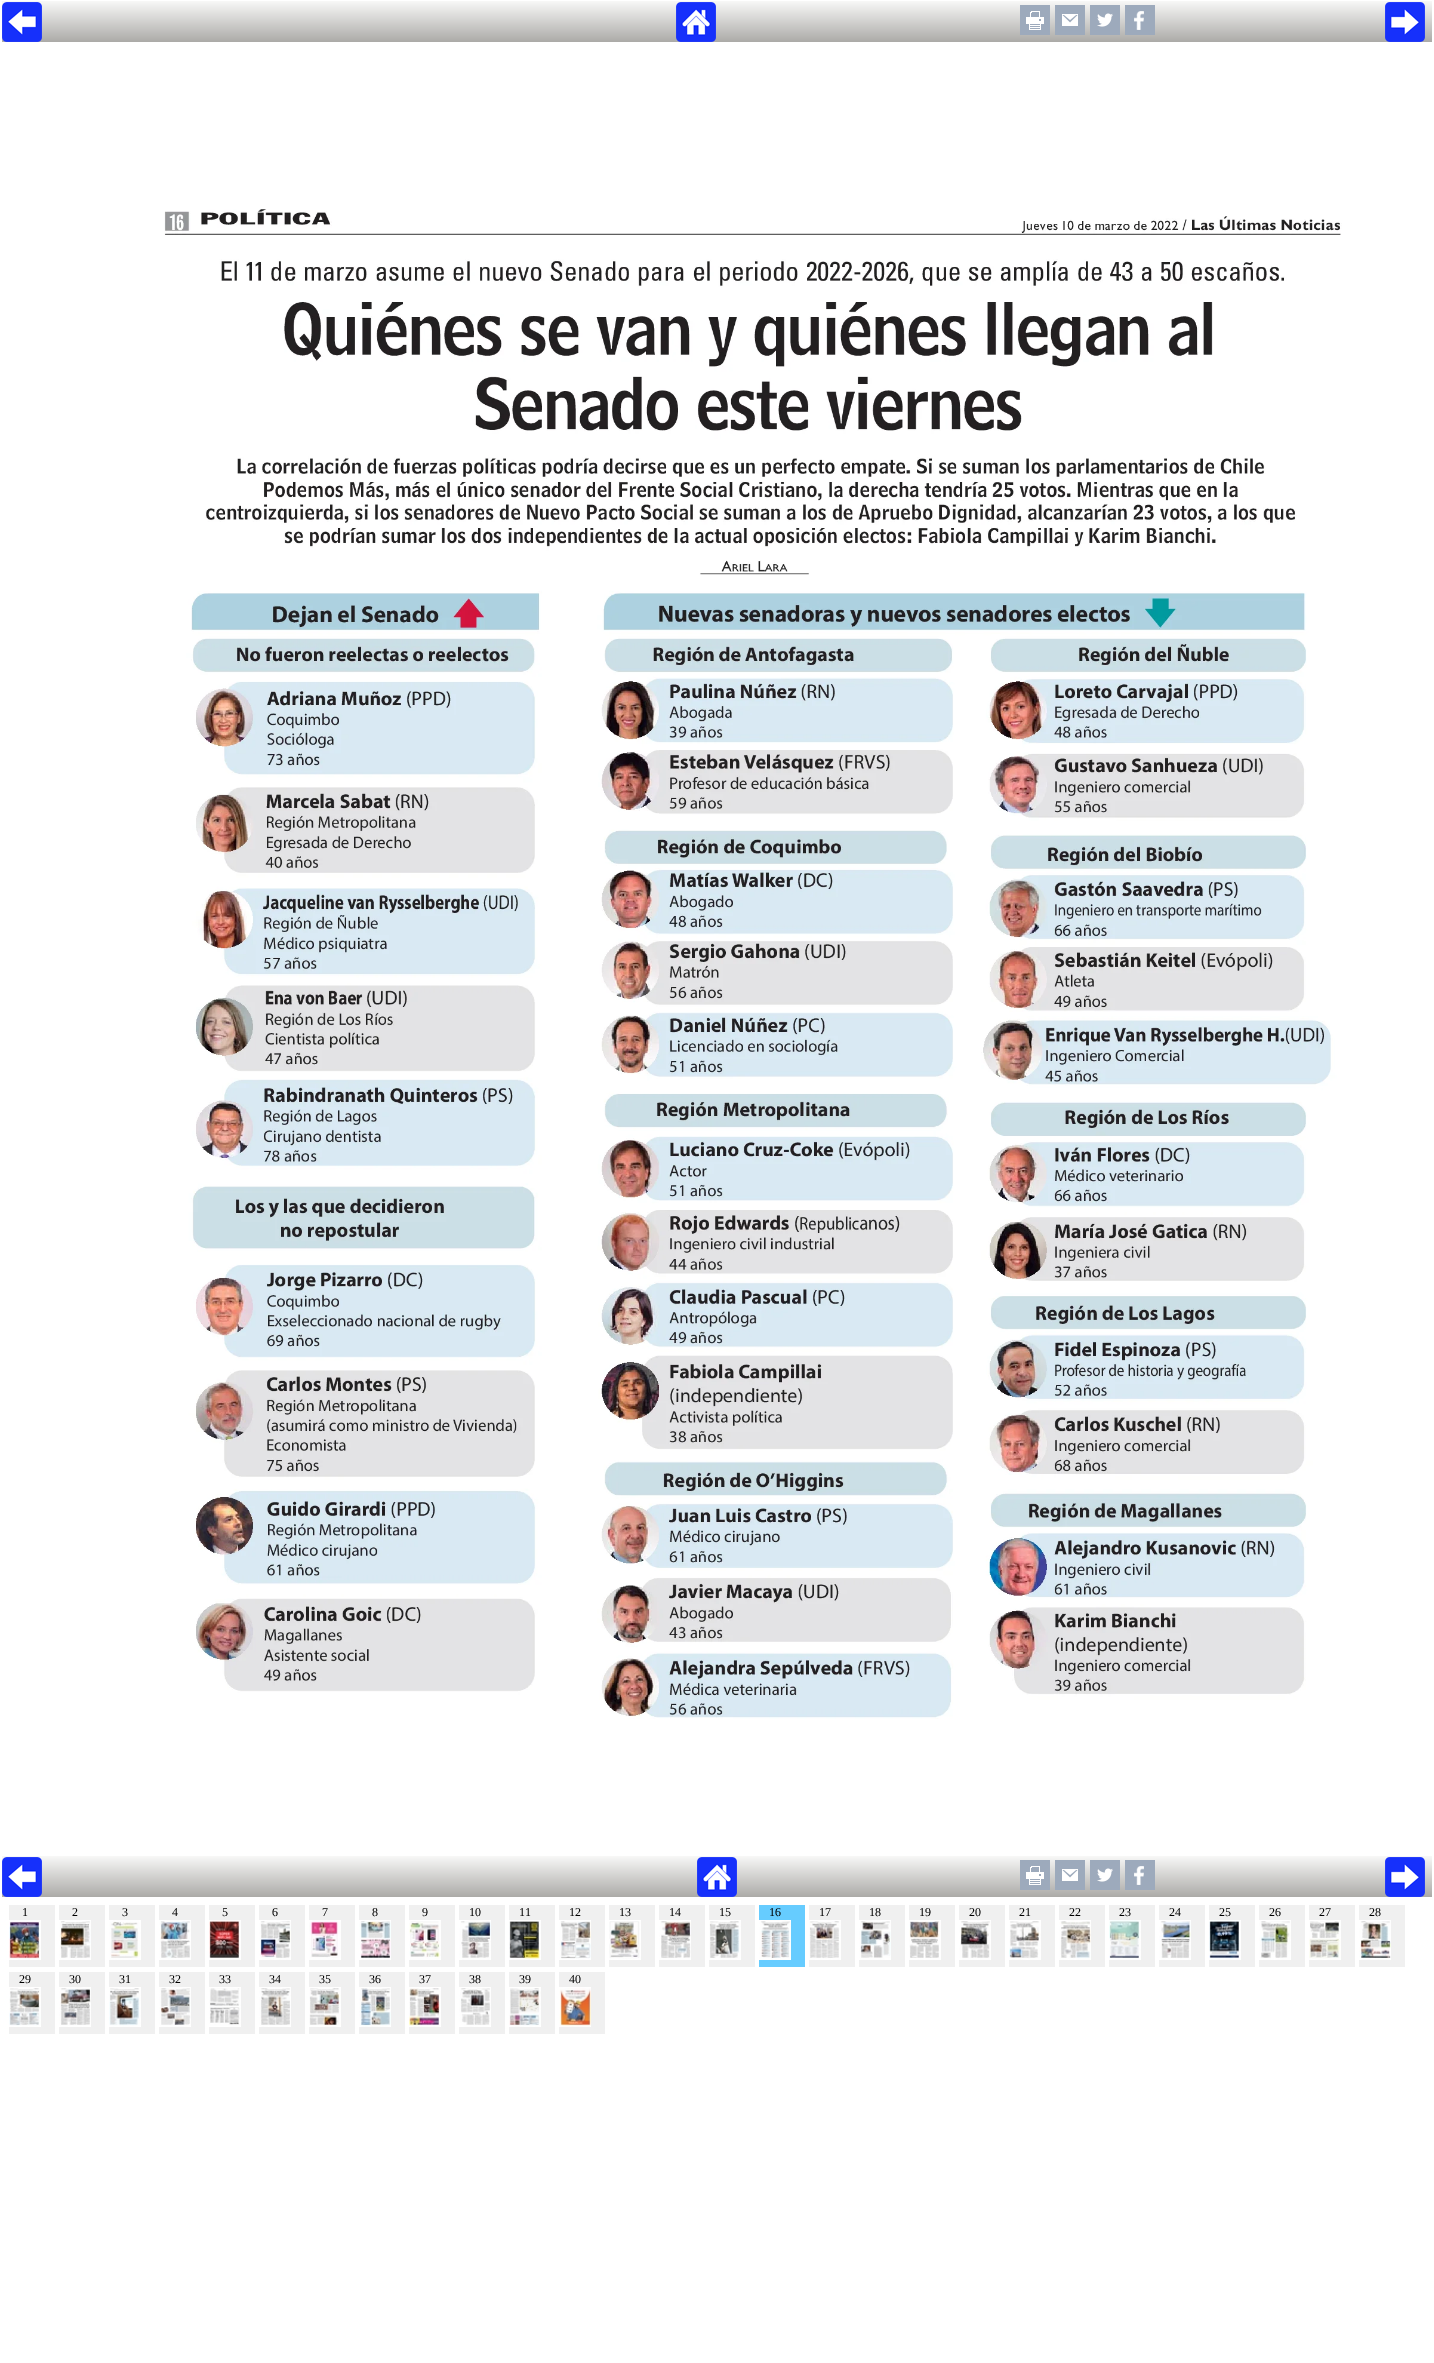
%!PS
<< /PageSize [1434 2363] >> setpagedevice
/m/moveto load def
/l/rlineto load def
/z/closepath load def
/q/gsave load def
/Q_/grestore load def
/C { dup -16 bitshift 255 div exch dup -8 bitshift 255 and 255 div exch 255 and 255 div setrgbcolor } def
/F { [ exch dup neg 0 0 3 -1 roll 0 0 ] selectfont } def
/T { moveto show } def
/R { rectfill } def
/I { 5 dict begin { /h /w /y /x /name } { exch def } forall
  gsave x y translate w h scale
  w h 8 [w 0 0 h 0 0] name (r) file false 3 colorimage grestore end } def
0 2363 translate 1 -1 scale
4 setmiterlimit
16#FFFFFF C
0 0 1434 2363 R
q 2 1 m 1430 0 l 0 41 l -1430 0 l z clip newpath
<< /ShadingType 2 /ColorSpace /DeviceRGB /Coords [717 1 717 42] /Extend [true true] /Function << /FunctionType 2 /Domain [0 1] /C0 [.973 .973 .969] /C1 [.675 .671 .659] /N 1 >> >> shfill Q_
(1.rgb) 2 2 40 40 I
(2.rgb) 676 2 40 40 I
(3.rgb) 1020 5 30 30 I
(4.rgb) 1055 5 30 30 I
(5.rgb) 1090 5 30 30 I
(6.rgb) 1125 5 30 30 I
(7.rgb) 1385 2 40 40 I
(8.rgb) 164 209 1178 1510 I
q 2 1856 m 1430 0 l 0 41 l -1430 0 l z clip newpath
<< /ShadingType 2 /ColorSpace /DeviceRGB /Coords [717 1856 717 1897] /Extend [true true] /Function << /FunctionType 2 /Domain [0 1] /C0 [.973 .973 .969] /C1 [.675 .671 .659] /N 1 >> >> shfill Q_
(1.rgb) 2 1857 40 40 I
(2.rgb) 697 1857 40 40 I
(3.rgb) 1020 1860 30 30 I
(4.rgb) 1055 1860 30 30 I
(5.rgb) 1090 1860 30 30 I
(6.rgb) 1125 1860 30 30 I
(7.rgb) 1385 1857 40 40 I
16#F0F0F0 C
9 1905 46 62 R
/LiberationSerif-Regular 12 F
16#000000 C
(1) 22 1916 T
(9.rgb) 9 1920 32 40 I
16#F0F0F0 C
59 1905 46 62 R
16#000000 C
(2) 72 1916 T
(10.rgb) 59 1920 32 40 I
16#F0F0F0 C
109 1905 46 62 R
16#000000 C
(3) 122 1916 T
(11.rgb) 109 1920 32 40 I
16#F0F0F0 C
159 1905 46 62 R
16#000000 C
(4) 172 1916 T
(12.rgb) 159 1920 32 40 I
16#F0F0F0 C
209 1905 46 62 R
16#000000 C
(5) 222 1916 T
(13.rgb) 209 1920 32 40 I
16#F0F0F0 C
259 1905 46 62 R
16#000000 C
(6) 272 1916 T
(14.rgb) 259 1920 32 40 I
16#F0F0F0 C
309 1905 46 62 R
16#000000 C
(7) 322 1916 T
(15.rgb) 309 1920 32 40 I
16#F0F0F0 C
359 1905 46 62 R
16#000000 C
(8) 372 1916 T
(16.rgb) 359 1920 32 40 I
16#F0F0F0 C
409 1905 46 62 R
16#000000 C
(9) 422 1916 T
(17.rgb) 409 1920 32 40 I
16#F0F0F0 C
459 1905 46 62 R
16#000000 C
(10) 469 1916 T
(18.rgb) 459 1920 32 40 I
16#F0F0F0 C
509 1905 46 62 R
16#000000 C
(11) 519 1916 T
(19.rgb) 509 1920 32 40 I
16#F0F0F0 C
559 1905 46 62 R
16#000000 C
(12) 569 1916 T
(20.rgb) 559 1920 32 40 I
16#F0F0F0 C
609 1905 46 62 R
16#000000 C
(13) 619 1916 T
(21.rgb) 609 1920 32 40 I
16#F0F0F0 C
659 1905 46 62 R
16#000000 C
(14) 669 1916 T
(22.rgb) 659 1920 32 40 I
16#F0F0F0 C
709 1905 46 62 R
16#000000 C
(15) 719 1916 T
(23.rgb) 709 1920 32 40 I
16#66CCFF C
759 1905 46 62 R
16#000000 C
(16) 769 1916 T
(24.rgb) 759 1920 32 40 I
16#F0F0F0 C
809 1905 46 62 R
16#000000 C
(17) 819 1916 T
(25.rgb) 809 1920 32 40 I
16#F0F0F0 C
859 1905 46 62 R
16#000000 C
(18) 869 1916 T
(26.rgb) 859 1920 32 40 I
16#F0F0F0 C
909 1905 46 62 R
16#000000 C
(19) 919 1916 T
(27.rgb) 909 1920 32 40 I
16#F0F0F0 C
959 1905 46 62 R
16#000000 C
(20) 969 1916 T
(28.rgb) 959 1920 32 40 I
16#F0F0F0 C
1009 1905 46 62 R
16#000000 C
(21) 1019 1916 T
(29.rgb) 1009 1920 32 40 I
16#F0F0F0 C
1059 1905 46 62 R
16#000000 C
(22) 1069 1916 T
(30.rgb) 1059 1920 32 40 I
16#F0F0F0 C
1109 1905 46 62 R
16#000000 C
(23) 1119 1916 T
(31.rgb) 1109 1920 32 40 I
16#F0F0F0 C
1159 1905 46 62 R
16#000000 C
(24) 1169 1916 T
(32.rgb) 1159 1920 32 40 I
16#F0F0F0 C
1209 1905 46 62 R
16#000000 C
(25) 1219 1916 T
(33.rgb) 1209 1920 32 40 I
16#F0F0F0 C
1259 1905 46 62 R
16#000000 C
(26) 1269 1916 T
(34.rgb) 1259 1920 32 40 I
16#F0F0F0 C
1309 1905 46 62 R
16#000000 C
(27) 1319 1916 T
(35.rgb) 1309 1920 32 40 I
16#F0F0F0 C
1359 1905 46 62 R
16#000000 C
(28) 1369 1916 T
(36.rgb) 1359 1920 32 40 I
16#F0F0F0 C
9 1972 46 62 R
16#000000 C
(29) 19 1983 T
(37.rgb) 9 1987 32 40 I
16#F0F0F0 C
59 1972 46 62 R
16#000000 C
(30) 69 1983 T
(38.rgb) 59 1987 32 40 I
16#F0F0F0 C
109 1972 46 62 R
16#000000 C
(31) 119 1983 T
(39.rgb) 109 1987 32 40 I
16#F0F0F0 C
159 1972 46 62 R
16#000000 C
(32) 169 1983 T
(40.rgb) 159 1987 32 40 I
16#F0F0F0 C
209 1972 46 62 R
16#000000 C
(33) 219 1983 T
(41.rgb) 209 1987 32 40 I
16#F0F0F0 C
259 1972 46 62 R
16#000000 C
(34) 269 1983 T
(42.rgb) 259 1987 32 40 I
16#F0F0F0 C
309 1972 46 62 R
16#000000 C
(35) 319 1983 T
(43.rgb) 309 1987 32 40 I
16#F0F0F0 C
359 1972 46 62 R
16#000000 C
(36) 369 1983 T
(44.rgb) 359 1987 32 40 I
16#F0F0F0 C
409 1972 46 62 R
16#000000 C
(37) 419 1983 T
(45.rgb) 409 1987 32 40 I
16#F0F0F0 C
459 1972 46 62 R
16#000000 C
(38) 469 1983 T
(46.rgb) 459 1987 32 40 I
16#F0F0F0 C
509 1972 46 62 R
16#000000 C
(39) 519 1983 T
(47.rgb) 509 1987 32 40 I
16#F0F0F0 C
559 1972 46 62 R
16#000000 C
(40) 569 1983 T
(48.rgb) 559 1987 32 40 I
showpage
